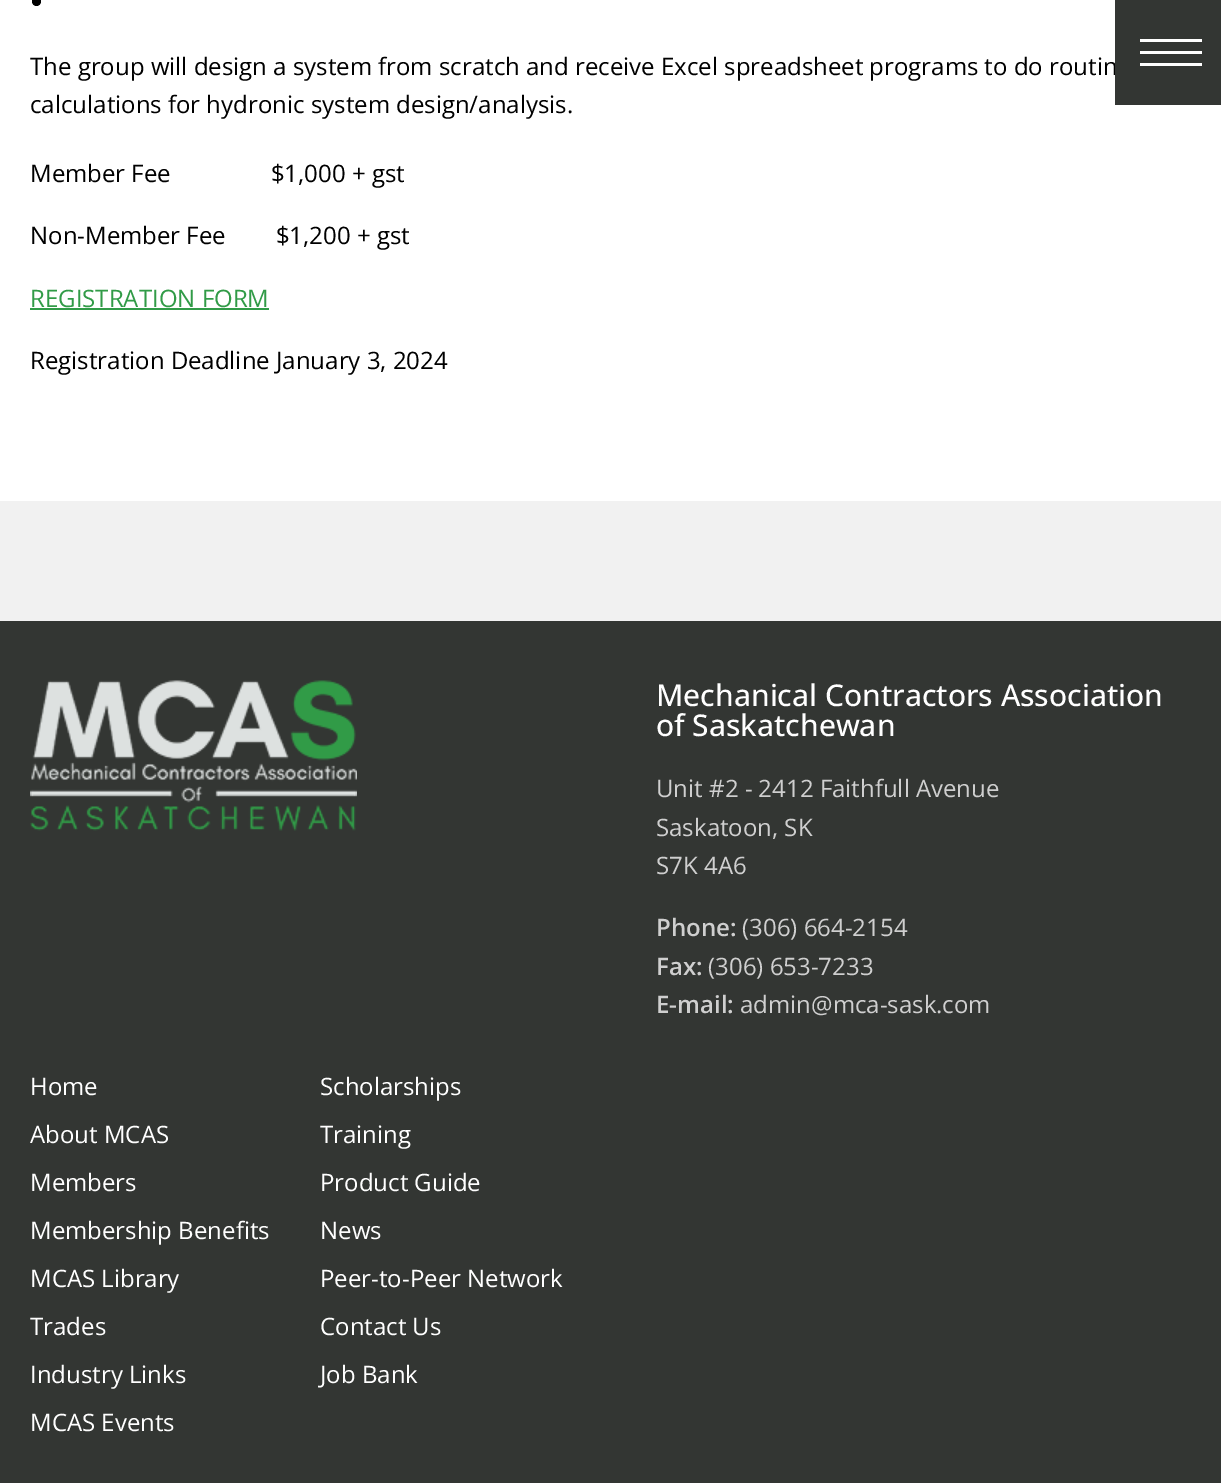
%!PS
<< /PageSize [1221 1483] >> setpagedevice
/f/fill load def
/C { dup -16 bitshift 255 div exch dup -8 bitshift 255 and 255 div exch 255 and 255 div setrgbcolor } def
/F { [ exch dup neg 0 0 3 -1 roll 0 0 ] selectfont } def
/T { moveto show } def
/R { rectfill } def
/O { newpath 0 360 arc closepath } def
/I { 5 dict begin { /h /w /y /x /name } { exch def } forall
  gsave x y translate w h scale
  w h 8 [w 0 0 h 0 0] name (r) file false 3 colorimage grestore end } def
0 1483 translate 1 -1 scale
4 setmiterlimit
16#FFFFFF C
0 0 1221 1483 R
16#000000 C
36.5 1.5 4.5 O f
/OpenSans-Regular 24 F
(The group will design a system from scratch and receive Excel spreadsheet programs to do routin) 30 75 T
(calculations for hydronic system design/analysis.) 30 113 T
(Member Fee                $1,000 + gst) 30 182 T
(Non-Member Fee        $1,200 + gst) 30 244 T
16#319B47 C
(REGISTRATION FORM) 30 307 T
30 308 239 2 R
16#000000 C
(Registration Deadline January 3, 2024) 30 369 T
16#333633 C
1115 0 106 105 R
16#FFFFFF C
1140 51 62 3 R
1140 39 62 3 R
1140 63 62 3 R
16#333633 C
0 621 1221 862 R
16#F1F1F1 C
0 501 1221 120 R
(1.rgb) 30 680 327 151 I
/OpenSans-Medium 30 F
16#FFFFFF C
(Mechanical Contractors Association) 656 706 T
(of Saskatchewan) 656 736 T
/OpenSans-Regular 24 F
16#CFCFCF C
(Unit #2 - 2412 Faithfull Avenue) 656 797 T
(Saskatoon, SK) 656 836 T
(S7K 4A6) 656 874 T
/OpenSans-SemiBold 24 F
(Phone:) 656 936 T
/OpenSans-Regular 24 F
(\(306\) 664-2154) 742 936 T
/OpenSans-SemiBold 24 F
(Fax:) 656 975 T
/OpenSans-Regular 24 F
(\(306\) 653-7233) 708 975 T
/OpenSans-SemiBold 24 F
(E-mail:) 656 1013 T
/OpenSans-Regular 24 F
(admin@mca-sask.com) 740 1013 T
16#FFFFFF C
(Home) 30 1095 T
(Scholarships) 320 1095 T
(About MCAS) 30 1143 T
(Training) 320 1143 T
(Members) 30 1191 T
(Product Guide) 320 1191 T
(Membership Benefits) 30 1239 T
(News) 320 1239 T
(MCAS Library) 30 1287 T
(Peer-to-Peer Network) 320 1287 T
(Trades) 30 1335 T
(Contact Us) 320 1335 T
(Industry Links) 30 1383 T
(Job Bank) 320 1383 T
(MCAS Events) 30 1431 T
showpage
